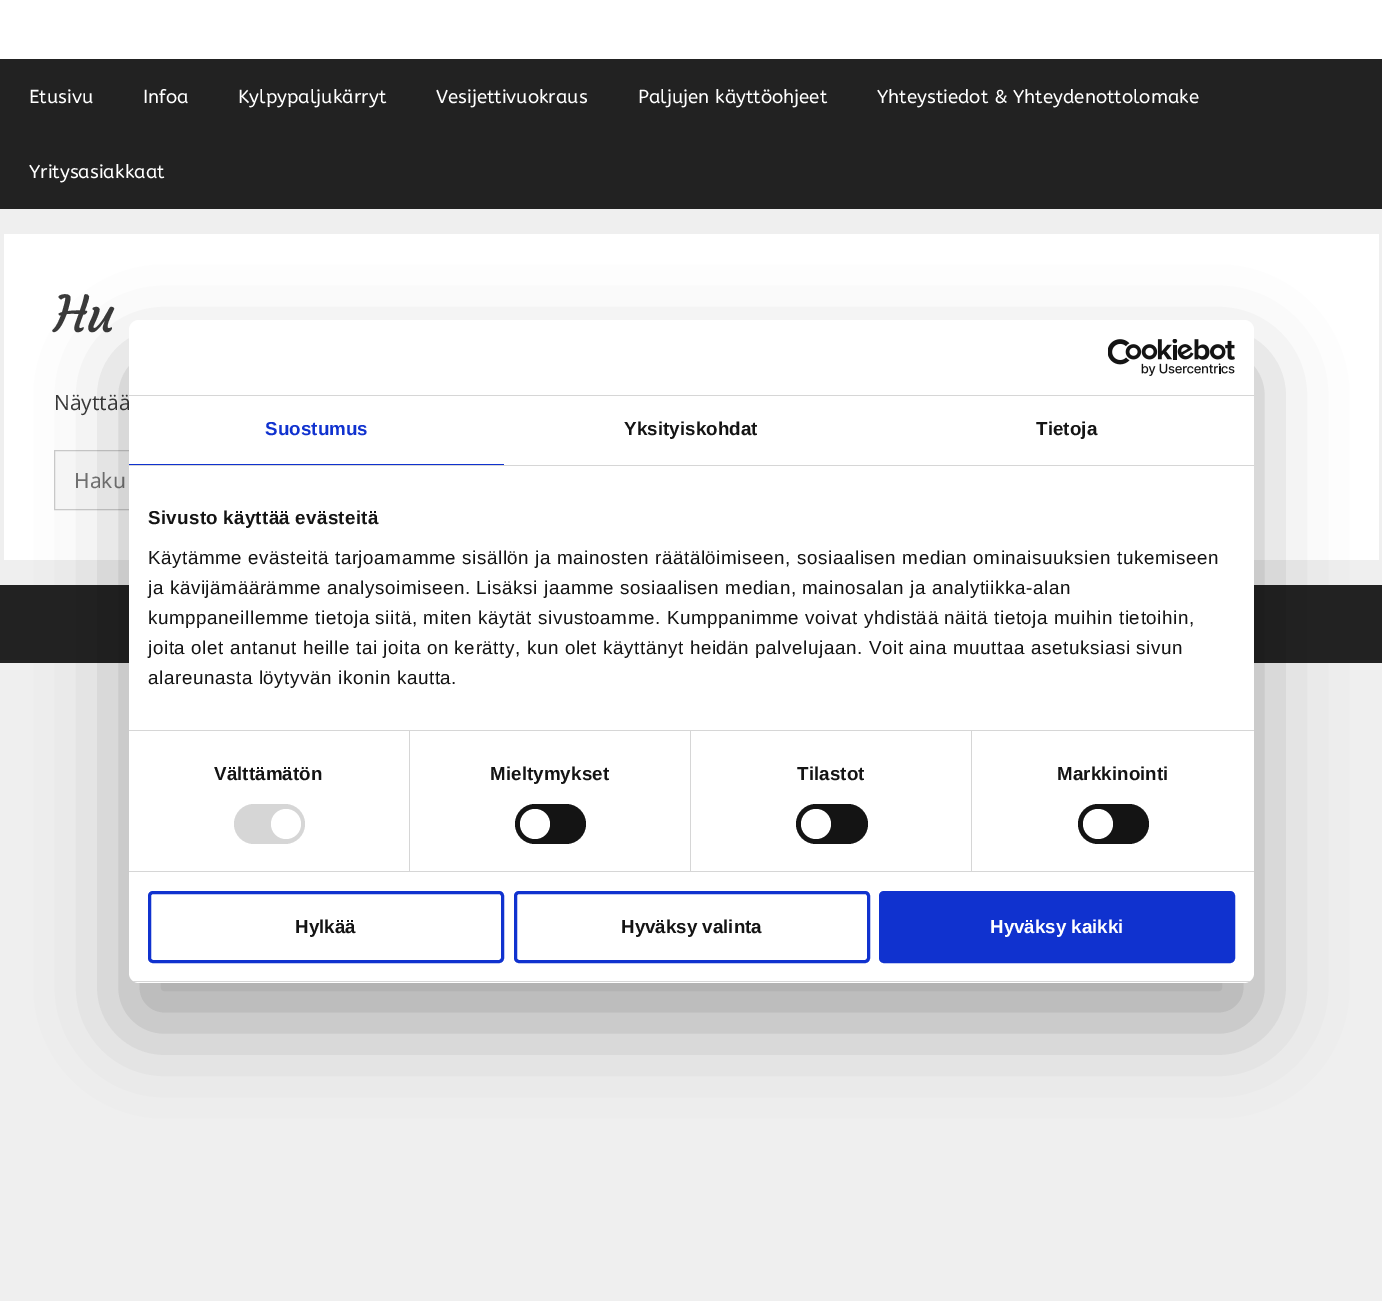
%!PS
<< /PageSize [1382 1301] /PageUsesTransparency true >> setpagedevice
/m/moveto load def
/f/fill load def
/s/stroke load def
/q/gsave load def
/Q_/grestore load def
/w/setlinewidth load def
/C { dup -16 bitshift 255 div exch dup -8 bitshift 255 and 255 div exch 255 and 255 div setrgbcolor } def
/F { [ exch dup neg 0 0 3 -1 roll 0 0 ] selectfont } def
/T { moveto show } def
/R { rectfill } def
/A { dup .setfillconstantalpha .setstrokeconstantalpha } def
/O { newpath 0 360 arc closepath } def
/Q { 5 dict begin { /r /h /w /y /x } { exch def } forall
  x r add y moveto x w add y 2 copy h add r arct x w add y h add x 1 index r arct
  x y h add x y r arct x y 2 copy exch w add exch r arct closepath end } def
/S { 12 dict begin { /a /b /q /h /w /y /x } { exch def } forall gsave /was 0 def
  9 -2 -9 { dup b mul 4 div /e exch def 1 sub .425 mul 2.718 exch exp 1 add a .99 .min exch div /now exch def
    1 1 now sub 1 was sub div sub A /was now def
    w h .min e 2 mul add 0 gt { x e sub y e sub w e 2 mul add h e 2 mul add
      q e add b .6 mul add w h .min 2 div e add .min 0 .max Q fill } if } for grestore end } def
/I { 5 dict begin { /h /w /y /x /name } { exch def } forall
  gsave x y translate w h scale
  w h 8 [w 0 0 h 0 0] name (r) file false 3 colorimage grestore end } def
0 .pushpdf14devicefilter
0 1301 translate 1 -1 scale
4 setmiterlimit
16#EFEFEF C
0 0 1382 1301 R
16#FFFFFF C
0 0 1382 59 R
16#222222 C
0 59 1382 150 R
/ABeeZee-Regular 18.75 F
16#FFFFFF C
(Etusivu) 29 103 T
(Infoa) 143 103 T
(Kylpypaljukärryt) 238 103 T
(Vesijettivuokraus) 436 103 T
(Paljujen käyttöohjeet) 638 103 T
(Yhteystiedot & Yhteydenottolomake) 877 103 T
(Yritysasiakkaat) 29 178 T
4 234 1375 326 R
/Courgette-Regular 50 F
16#3A3A3A C
(Hu) 54 332 T
/OpenSans-Regular 21 F
(Näyttää) 54 410 T
16#FAFAFA C
55 451 74 58 R
16#CCCCCC C
54.5 450.5 349 59 rectstroke
/NotoSans-Regular 21 F
16#757575 C
(Haku) 74 488 T
16#222222 C
0 585 1382 78 R
16#000000 C
129 360 1125 663 10 42.5 .3 S
16#FFFFFF C
129 320 1125 663 10 Q f
16#D6D6D6 C
129 395 1125 1 R
(1.rgb) 1108 339 127 37 I
129 465 1125 1 R
16#1032CF C
129 464 375 1 R
/LiberationSans-Bold 18.75 F
265 435 m .1 0 (Suostumus) ashow
16#141414 C
624 435 m .1 0 (Yksityiskohdat) ashow
1036 435 m .1 0 (Tietoja) ashow
16#D6D6D6 C
129 730 1125 1 R
16#141414 C
148 524 m .3 0 (Sivusto käyttää evästeitä) ashow
/LiberationSans-Regular 18.75 F
148 564 m .62 0 (Käytämme evästeitä tarjoamamme sisällön ja mainosten räätälöimiseen, sosiaalisen median ominaisuuksien tukemiseen) ashow
148 594 m .62 0 (ja kävijämäärämme analysoimiseen. Lisäksi jaamme sosiaalisen median, mainosalan ja analytiikka-alan) ashow
148 624 m .62 0 (kumppaneillemme tietoja siitä, miten käytät sivustoamme. Kumppanimme voivat yhdistää näitä tietoja muihin tietoihin,) ashow
148 654 m .62 0 (joita olet antanut heille tai joita on kerätty, kun olet käyttänyt heidän palvelujaan. Voit aina muuttaa asetuksiasi sivun) ashow
148 684 m .62 0 (alareunasta löytyvän ikonin kautta.) ashow
16#D6D6D6 C
129 871 1125 1 R
409 731 1 140 R
/LiberationSans-Bold 18.75 F
16#141414 C
214 780 m .1 0 (Välttämätön) ashow
16#D6D6D6 C
234 804 71 40 20 Q f
16#FFFFFF C
286 824 15 O f
16#D6D6D6 C
690 731 1 140 R
16#141414 C
490 780 m .1 0 (Mieltymykset) ashow
515 804 71 40 20 Q f
16#FFFFFF C
535 824 15 O f
16#D6D6D6 C
971 731 1 140 R
16#141414 C
797 780 m .1 0 (Tilastot) ashow
796 804 72 40 20 Q f
16#FFFFFF C
816 824 15 O f
16#141414 C
1057 780 m .1 0 (Markkinointi) ashow
1078 804 71 40 20 Q f
16#FFFFFF C
1098 824 15 O f
q
129 320 1125 663 10 Q clip newpath
16#D6D6D6 C
129 981 1125 1 R
Q_
16#1032CF C
3 w
149.5 892.5 353 69 3.5 Q s
16#141414 C
(Hylkää) 295 933 T
16#1032CF C
515.5 892.5 353 69 3.5 Q s
16#141414 C
(Hyväksy valinta) 621 933 T
16#1032CF C
880.5 892.5 353 69 3.5 Q q f Q_
s
16#FFFFFF C
(Hyväksy kaikki) 990 933 T
.poppdf14devicefilter showpage
